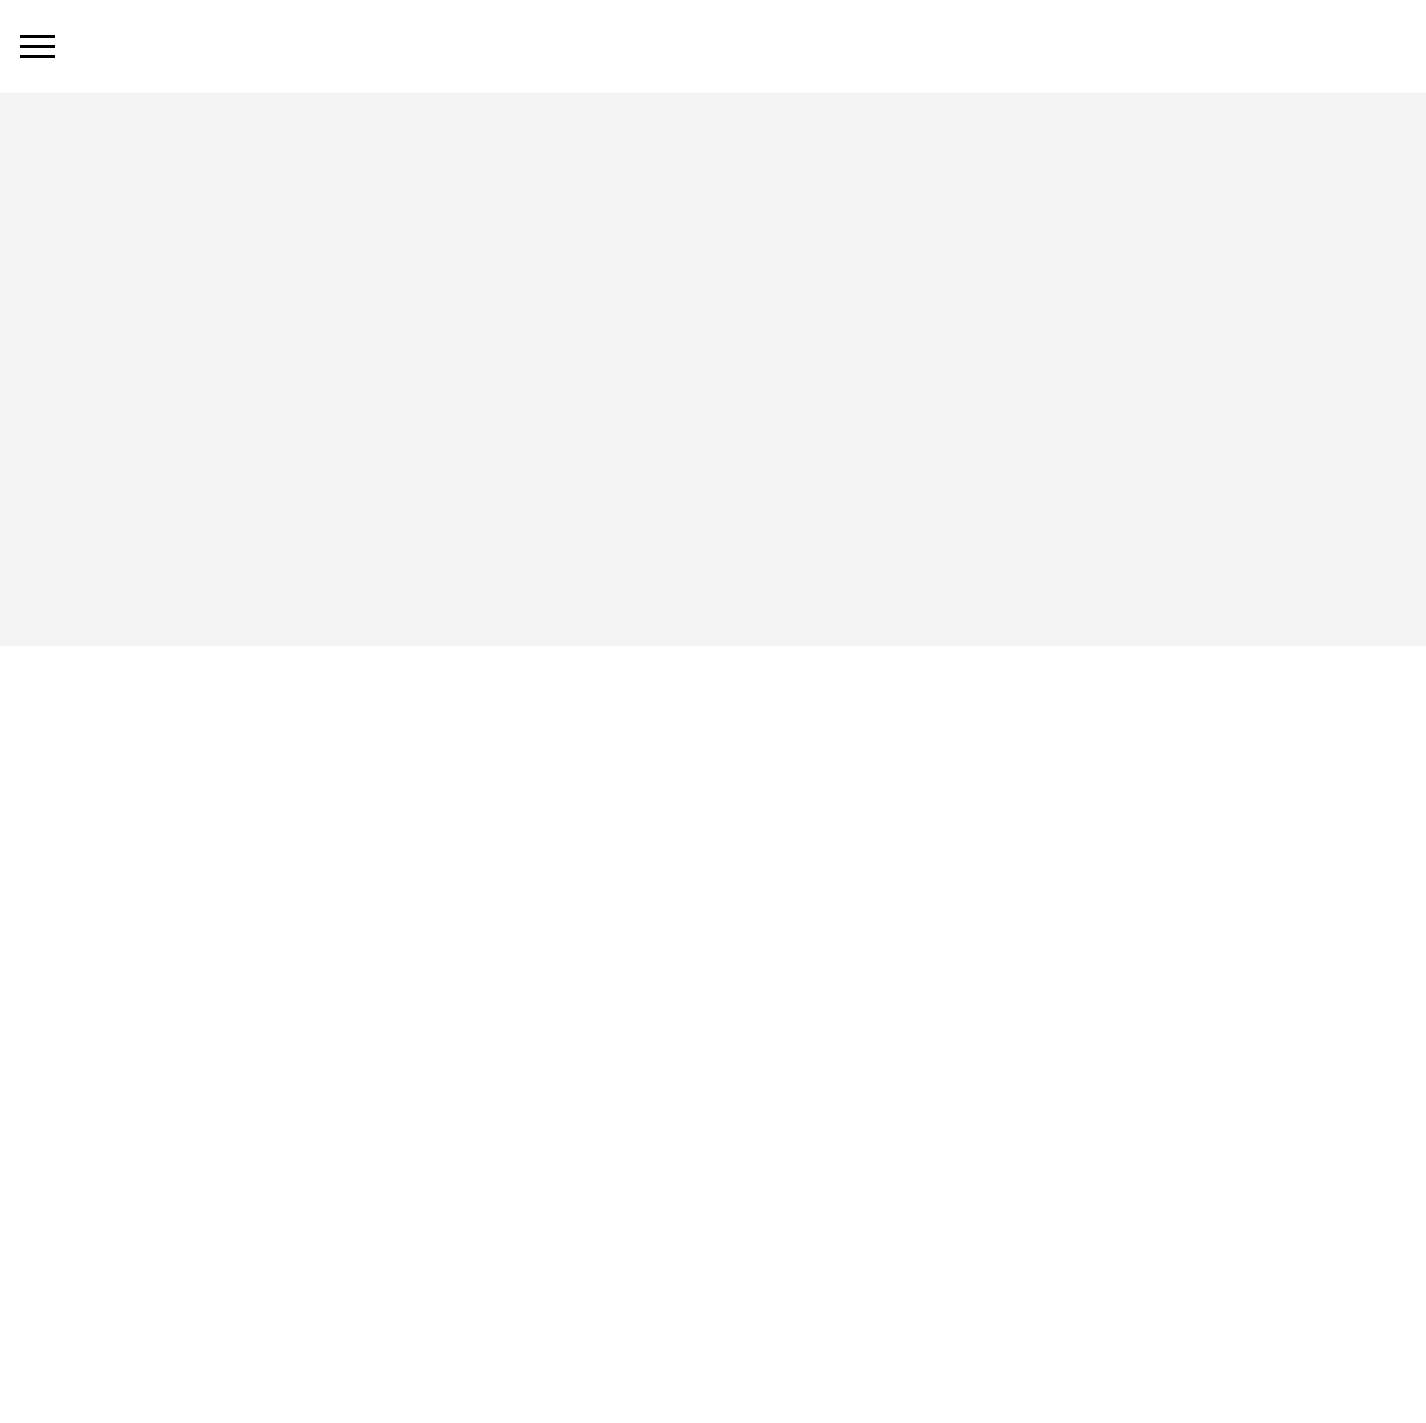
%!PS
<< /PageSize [1426 1423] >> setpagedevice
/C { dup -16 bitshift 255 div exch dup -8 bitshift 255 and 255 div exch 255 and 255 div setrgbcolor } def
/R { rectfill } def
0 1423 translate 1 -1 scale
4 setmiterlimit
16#FFFFFF C
0 0 1426 1423 R
16#000000 C
20 45 35 3 R
20 35 35 3 R
20 55 35 3 R
16#F4F4F4 C
0 93 1426 553 R
showpage
